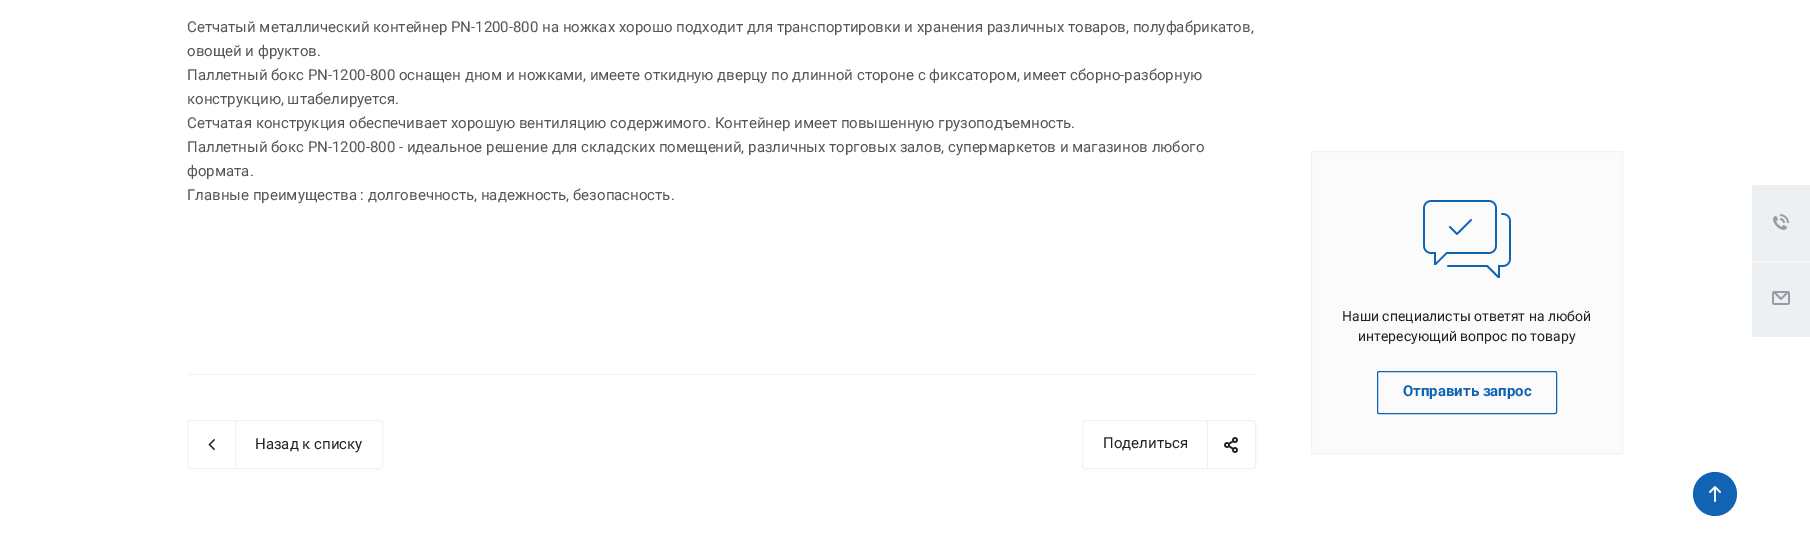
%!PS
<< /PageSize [1810 539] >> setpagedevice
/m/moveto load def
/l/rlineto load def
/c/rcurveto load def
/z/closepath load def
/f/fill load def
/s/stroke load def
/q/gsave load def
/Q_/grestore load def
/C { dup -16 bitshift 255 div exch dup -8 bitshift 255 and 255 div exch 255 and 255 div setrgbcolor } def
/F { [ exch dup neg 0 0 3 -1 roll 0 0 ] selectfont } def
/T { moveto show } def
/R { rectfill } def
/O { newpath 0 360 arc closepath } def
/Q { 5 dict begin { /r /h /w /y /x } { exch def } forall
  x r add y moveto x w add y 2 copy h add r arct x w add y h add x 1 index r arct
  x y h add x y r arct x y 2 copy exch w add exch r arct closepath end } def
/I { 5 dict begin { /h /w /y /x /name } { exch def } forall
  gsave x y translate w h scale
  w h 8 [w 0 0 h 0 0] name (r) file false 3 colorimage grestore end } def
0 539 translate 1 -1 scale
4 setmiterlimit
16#FFFFFF C
0 0 1810 539 R
/Roboto-Regular 15 F
16#555555 C
(Cетчатый металлический контейнер PN-1200-800 на ножках хорошо подходит для транспортировки и хранения различных товаров, полуфабрикатов,) 187 32 T
(овощей и фруктов.) 187 56 T
(Паллетный бокс PN-1200-800 оснащен дном и ножками, имеете откидную дверцу по длинной стороне с фиксатором, имеет сборно-разборную) 187 80 T
(конструкцию, штабелируется.) 187 104 T
(Сетчатая конструкция обеспечивает хорошую вентиляцию содержимого. Контейнер имеет повышенную грузоподъемность.) 187 128 T
(Паллетный бокс PN-1200-800 - идеальное решение для складских помещений, различных торговых залов, супермаркетов и магазинов любого) 187 152 T
(формата.) 187 176 T
(Главные преимущества : долговечность, надежность, безопасность.) 187 200 T
16#FBFBFB C
1311.5 151.5 m 311 0 l 0 302 l -311 0 l z q f Q_
16#F2F2F2 C
s
(1.rgb) 1423 200 88 78 I
/Roboto-Regular 14 F
16#222222 C
(Наши специалисты ответят на любой) 1342 321 T
(интересующий вопрос по товару) 1358 341 T
16#1164B4 C
1377.5 371.5 179 42 1.5 Q s
/Roboto-Bold 15 F
(Отправить запрос) 1403 396 T
16#F2F2F2 C
187 374 1069 1 R
187.5 420.5 195 48 2.5 Q s
(2.rgb) 208 439 7 12 I
235 421 1 47 R
/Roboto-Regular 15 F
16#222222 C
(Назад к списку) 255 449 T
16#F2F2F2 C
1082.5 420.5 173 48 2.5 Q s
16#222222 C
(Поделиться) 1103 448 T
16#F2F2F2 C
1207 421 1 47 R
(3.rgb) 1224 437 14 16 I
16#EDF0F3 C
1754 185 m 56 0 l 0 76 l -58 0 l 0 -74 l 0 -1 1 -2 2 -2 c z f
(4.rgb) 1773 214 16 16 I
1752 261 m 58 0 l 0 76 l -56 0 l -1 0 -2 -1 -2 -2 c z f
16#F6F8F9 C
1752 261 58 1 R
(5.rgb) 1772 291 18 14 I
16#1164B4 C
1715 494 22 O f
(6.rgb) 1709 486 12 16 I
showpage
